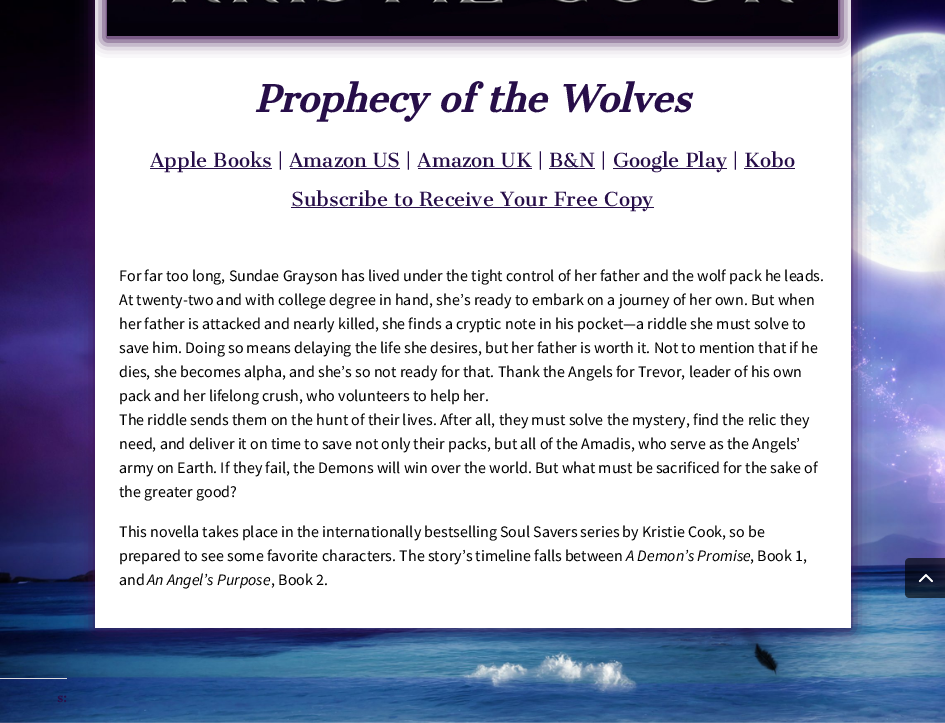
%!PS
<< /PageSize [945 723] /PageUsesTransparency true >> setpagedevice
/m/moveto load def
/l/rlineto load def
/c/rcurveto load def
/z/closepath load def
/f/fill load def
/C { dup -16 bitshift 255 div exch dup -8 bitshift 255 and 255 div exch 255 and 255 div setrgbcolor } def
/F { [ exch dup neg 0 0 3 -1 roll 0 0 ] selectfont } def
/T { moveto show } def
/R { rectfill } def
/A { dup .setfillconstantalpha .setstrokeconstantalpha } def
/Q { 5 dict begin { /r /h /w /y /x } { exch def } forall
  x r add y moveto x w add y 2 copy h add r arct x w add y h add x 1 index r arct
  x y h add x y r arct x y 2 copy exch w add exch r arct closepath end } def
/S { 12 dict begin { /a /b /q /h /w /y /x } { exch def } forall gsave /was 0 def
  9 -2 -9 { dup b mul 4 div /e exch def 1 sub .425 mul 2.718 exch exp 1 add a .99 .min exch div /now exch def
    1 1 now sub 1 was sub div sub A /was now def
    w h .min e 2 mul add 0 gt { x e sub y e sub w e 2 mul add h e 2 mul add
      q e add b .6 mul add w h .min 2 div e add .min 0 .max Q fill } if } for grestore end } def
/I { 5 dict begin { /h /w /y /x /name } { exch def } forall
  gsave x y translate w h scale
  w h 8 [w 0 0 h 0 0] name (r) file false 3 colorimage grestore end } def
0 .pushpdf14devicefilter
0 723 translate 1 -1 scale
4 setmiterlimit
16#FFFFFF C
0 0 945 723 R
(1.rgb) 0 0 945 723 I
16#3E1151 C
95 -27 756 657 0 9 1 S
16#FFFFFF C
95 0 756 628 R
16#3E1151 C
104 -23 738 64 0 7.5 1 S
(2.rgb) 107 0 731 36 I
/CantataOne-BoldItalic 36 F
16#270E49 C
(Prophecy of the Wolves) 255 112 T
150 168 122 1 R
/CantataOne-Regular 19 F
(Apple Books | Amazon US | Amazon UK | B&N |) 150 167 T
613 168 114 1 R
(Google Play | Kobo) 613 167 T
290 168 110 1 R
418 168 114 1 R
549 168 46 1 R
744 168 51 1 R
291 207 363 1 R
(Subscribe to Receive Your Free Copy) 291 206 T
/SourceSansPro-Regular 16 F
16#000000 C
(For far too long, Sundae Grayson has lived under the tight control of her father and the wolf pack he leads.) 119 281 T
(At twenty-two and with college degree in hand, she’s ready to embark on a journey of her own. But when) 119 305 T
(her father is attacked and nearly killed, she finds a cryptic note in his pocket—a riddle she must solve to) 119 329 T
(save him. Doing so means delaying the life she desires, but her father is worth it. Not to mention that if he) 119 353 T
(dies, she becomes alpha, and she’s so not ready for that. Thank the Angels for Trevor, leader of his own) 119 377 T
(pack and her lifelong crush, who volunteers to help her.) 119 401 T
(The riddle sends them on the hunt of their lives. After all, they must solve the mystery, find the relic they) 119 425 T
(need, and deliver it on time to save not only their packs, but all of the Amadis, who serve as the Angels’) 119 449 T
(army on Earth. If they fail, the Demons will win over the world. But what must be sacrificed for the sake of) 119 473 T
(the greater good?) 119 497 T
(This novella takes place in the internationally bestselling Soul Savers series by Kristie Cook, so be) 119 537 T
(prepared to see some favorite characters. The story’s timeline falls between) 119 561 T
/SourceSansPro-Italic 16 F
(A Demon’s Promise) 626 561 T
/SourceSansPro-Regular 16 F
(, Book 1,) 750 561 T
(and) 119 585 T
/SourceSansPro-Italic 16 F
(An Angel’s Purpose) 147 585 T
/SourceSansPro-Regular 16 F
(, Book 2.) 271 585 T
16#DDDDDD C
0 678 67 1 R
/CantataOne-Bold 12 F
16#270E49 C
(s:) 57 702 T
0.4 A
16#000000 C
910 558 m 35 0 l 0 40 l -35 0 l -3 0 -5 -2 -5 -5 c 0 -30 l 0 -3 2 -5 5 -5 c z f
1 A
(3.rgb) 918 574 15 9 I
0.4 A
910 558 m 35 0 l 0 40 l -35 0 l -3 0 -5 -2 -5 -5 c 0 -30 l 0 -3 2 -5 5 -5 c z f
1 A
(4.rgb) 918 574 15 9 I
.poppdf14devicefilter showpage
